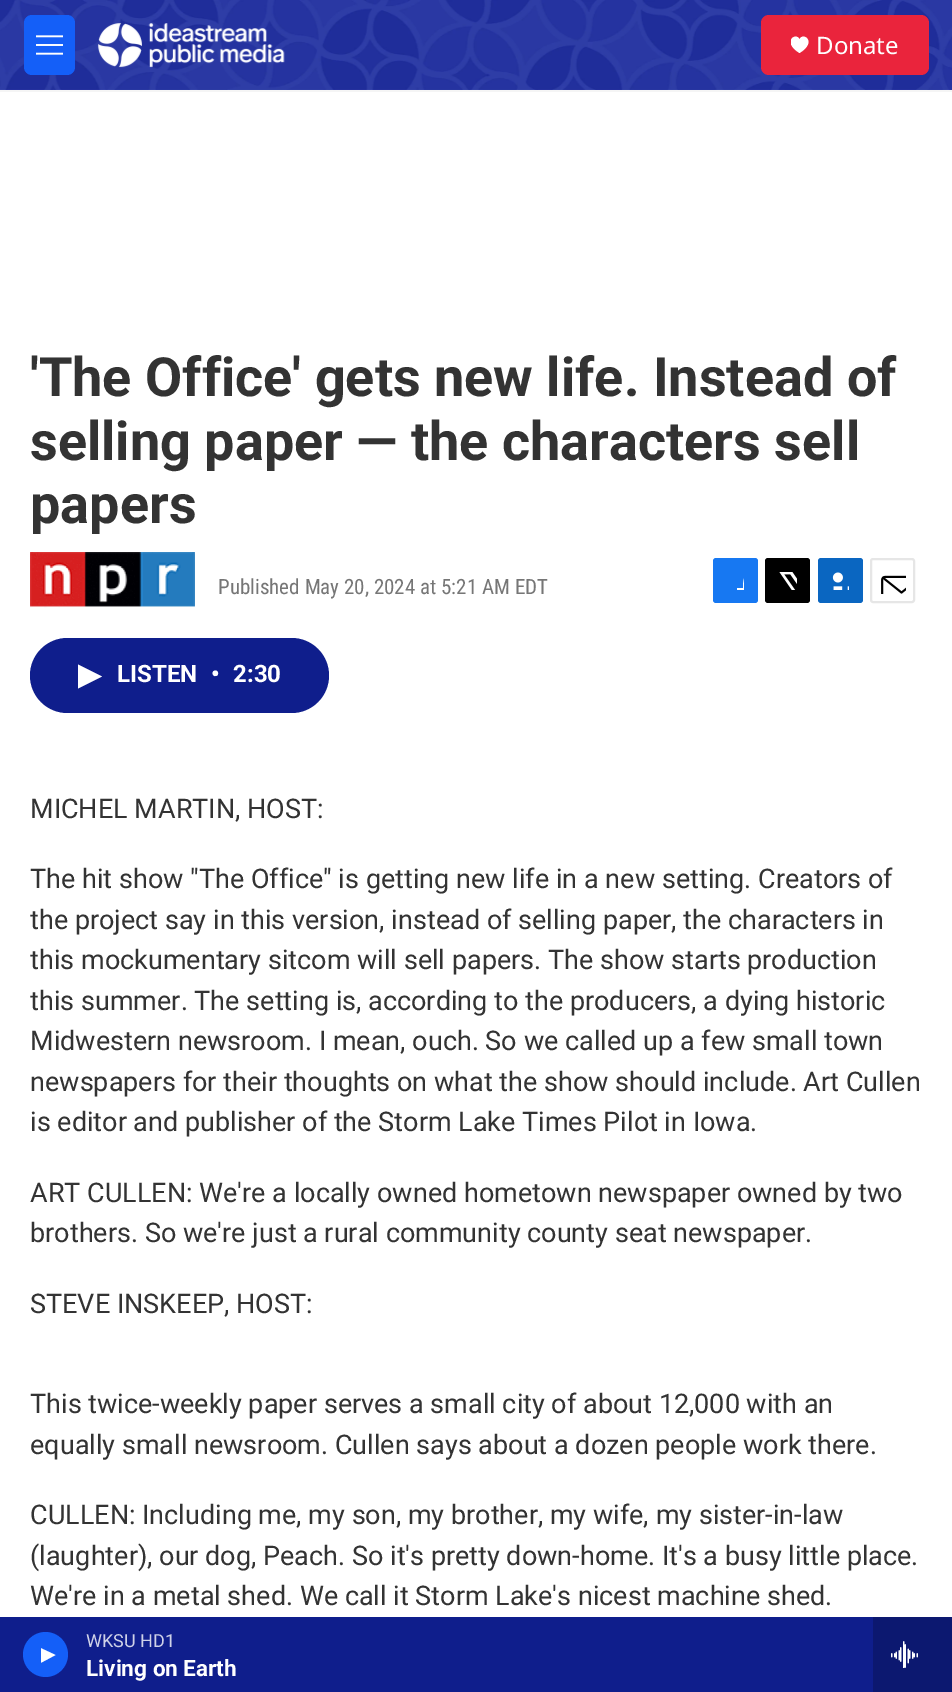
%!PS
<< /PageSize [952 1692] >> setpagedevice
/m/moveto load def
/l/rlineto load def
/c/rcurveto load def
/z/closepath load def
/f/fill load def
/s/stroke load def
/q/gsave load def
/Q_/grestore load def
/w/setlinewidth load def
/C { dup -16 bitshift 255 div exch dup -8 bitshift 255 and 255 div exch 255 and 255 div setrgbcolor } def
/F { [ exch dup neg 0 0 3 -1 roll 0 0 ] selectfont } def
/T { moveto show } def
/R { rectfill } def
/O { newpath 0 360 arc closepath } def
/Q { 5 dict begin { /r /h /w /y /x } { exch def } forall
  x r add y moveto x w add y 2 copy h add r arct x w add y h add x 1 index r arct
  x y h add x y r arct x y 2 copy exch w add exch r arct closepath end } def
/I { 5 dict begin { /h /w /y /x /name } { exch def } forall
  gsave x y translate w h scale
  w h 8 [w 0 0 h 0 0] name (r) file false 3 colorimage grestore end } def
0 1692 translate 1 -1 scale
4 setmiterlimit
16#FFFFFF C
0 0 952 1692 R
16#F5F5F5 C
0 90 952 2 R
(1.rgb) 0 0 952 90 I
16#145FF8 C
24 15 51 60 8 Q f
(2.rgb) 36 35 27 20 I
(3.rgb) 97 23 188 45 I
16#EA243C C
761 15 168 60 8 Q f
q
791 36 18 18 rectclip
16#FFFFFF C
799.5 39.5 m -3 -8 -18.5 2 0 13.5 c 18.5 -11.5 3 -21.5 0 -13.5 c z f
Q_
/NotoSans-Regular 24 F
16#FFFFFF C
(Donate) 816 54 T
16#0F1E8C C
0 1617 873 75 R
16#145FF8 C
45.5 1654.5 22.5 O f
q
41 1647 15 17 rectclip
16#FFFFFF C
40.5 1648 m 15 7 l -15 8 l z f
Q_
/Roboto-Regular 18 F
16#CFD2E8 C
(WKSU HD1) 86 1647 T
/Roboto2-Bold 22.5 F
16#FFFFFF C
(Living on Earth) 86 1676 T
16#0C1870 C
873 1617 79 75 R
(4.rgb) 891 1641 27 27 I
/Roboto-Bold 54 F
16#333333 C
('The Office' gets new life. Instead of) 30 396 T
(selling paper — the characters sell) 30 460 T
(papers) 30 523 T
(5.rgb) 30 552 165 56 I
/RobotoCondensed-Regular 21 F
16#767676 C
(Published May 20, 2024 at 5:21 AM EDT) 218 594 T
16#1778F2 C
713 558 45 45 3 Q f
q
726 572 18 18 rectclip
16#FFFFFF C
751 603 m -8 0 l 0 -7 l -6 0 l 0 -8 l 6 0 l 0 -11.5 2 -17.5 15 -16 c 0 7 l -8 0 -7 2.5 -7 9 c 7 0 l -1 8 l -6 0 l z f
Q_
16#000000 C
765 558 45 45 3 Q f
(6.rgb) 779 572 18 18 I
16#0A66C1 C
818 558 45 45 3 Q f
(7.rgb) 832 572 17 18 I
16#E6E6E6 C
2 w
871 559 43 43 2 Q s
(8.rgb) 881 575 25 19 I
16#0F1E8C C
30 638 299 75 37.5 Q f
16#FFFFFF C
78 664.5 m 24 12 l -24 12 l z f
/Roboto2-Bold 24 F
(LISTEN) 117 682 T
(•) 211 682 T
(2:30) 233 682 T
/Roboto-Regular 27 F
16#333333 C
(MICHEL MARTIN, HOST:) 30 818 T
(The hit show "The Office" is getting new life in a new setting. Creators of) 30 888 T
(the project say in this version, instead of selling paper, the characters in) 30 929 T
(this mockumentary sitcom will sell papers. The show starts production) 30 969 T
(this summer. The setting is, according to the producers, a dying historic) 30 1010 T
(Midwestern newsroom. I mean, ouch. So we called up a few small town) 30 1050 T
(newspapers for their thoughts on what the show should include. Art Cullen) 30 1091 T
(is editor and publisher of the Storm Lake Times Pilot in Iowa.) 30 1131 T
(ART CULLEN: We're a locally owned hometown newspaper owned by two) 30 1202 T
(brothers. So we're just a rural community county seat newspaper.) 30 1242 T
(STEVE INSKEEP, HOST:) 30 1313 T
(This twice-weekly paper serves a small city of about 12,000 with an) 30 1413 T
(equally small newsroom. Cullen says about a dozen people work there.) 30 1454 T
(CULLEN: Including me, my son, my brother, my wife, my sister-in-law) 30 1524 T
(\(laughter\), our dog, Peach. So it's pretty down-home. It's a busy little place.) 30 1565 T
(We're in a metal shed. We call it Storm Lake's nicest machine shed.) 30 1605 T
showpage
